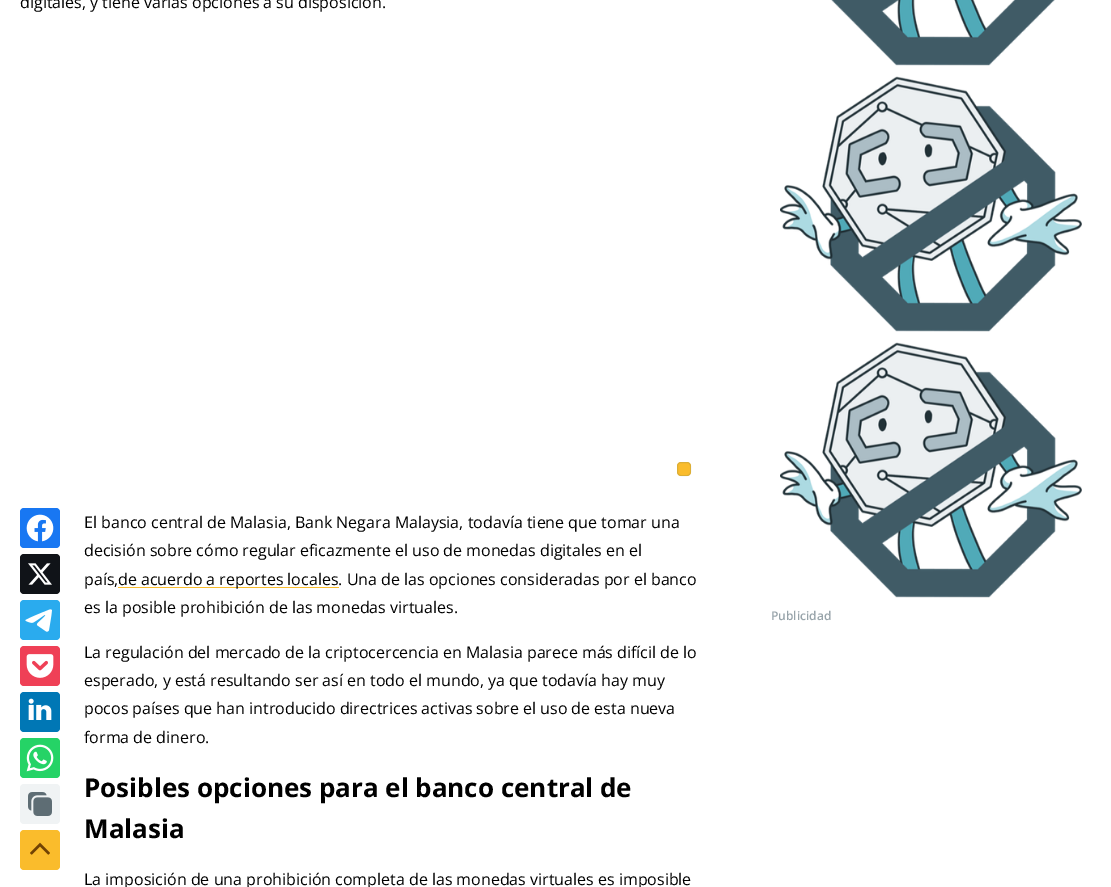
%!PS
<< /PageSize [1111 887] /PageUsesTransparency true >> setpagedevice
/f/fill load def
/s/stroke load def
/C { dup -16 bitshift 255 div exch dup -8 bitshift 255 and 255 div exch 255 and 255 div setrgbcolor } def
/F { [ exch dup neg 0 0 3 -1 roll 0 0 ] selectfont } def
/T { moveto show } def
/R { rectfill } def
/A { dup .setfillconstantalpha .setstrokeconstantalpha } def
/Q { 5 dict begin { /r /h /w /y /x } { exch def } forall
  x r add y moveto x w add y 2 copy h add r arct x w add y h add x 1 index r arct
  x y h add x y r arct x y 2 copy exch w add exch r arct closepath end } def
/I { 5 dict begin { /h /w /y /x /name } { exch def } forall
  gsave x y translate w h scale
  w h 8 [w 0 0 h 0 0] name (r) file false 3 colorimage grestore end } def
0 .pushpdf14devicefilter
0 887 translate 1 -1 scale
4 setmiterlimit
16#FFFFFF C
0 0 1111 887 R
/OpenSans-Regular 16 F
16#000000 C
(digitales, y tiene varias opciones a su disposición.) 20 8 T
16#FABC2C C
677 462 14 14 4 Q f
0.15 A
16#31616F C
677.5 462.5 13 13 3.5 Q s
1 A
16#1877F2 C
20 508 40 40 4 Q f
(1.rgb) 26 514 28 28 I
16#101318 C
20 554 40 40 4 Q f
(2.rgb) 28 563 24 22 I
16#2AABEE C
20 600 40 40 4 Q f
(3.rgb) 25 609 27 23 I
16#EF4056 C
20 646 40 40 4 Q f
(4.rgb) 26 654 28 24 I
16#0077B5 C
20 692 40 40 4 Q f
(5.rgb) 28 698 24 22 I
16#25D366 C
20 738 40 40 4 Q f
(6.rgb) 26 744 28 28 I
16#F0F3F4 C
20 784 40 40 4 Q f
(7.rgb) 28 792 24 24 I
16#FABC2C C
20 830 40 40 4 Q f
(8.rgb) 30 842 20 13 I
16#000000 C
(El banco central de Malasia, Bank Negara Malaysia, todavía tiene que tomar una) 84 528 T
(decisión sobre cómo regular eficazmente el uso de monedas digitales en el) 84 556 T
(país,) 84 585 T
16#FABC2C C
118 587 221 1 R
16#000000 C
(de acuerdo a reportes locales. Una de las opciones consideradas por el banco) 118 585 T
(es la posible prohibición de las monedas virtuales.) 84 613 T
(La regulación del mercado de la criptocercencia en Malasia parece más difícil de lo) 84 658 T
(esperado, y está resultando ser así en todo el mundo, ya que todavía hay muy) 84 686 T
(pocos países que han introducido directrices activas sobre el uso de esta nueva) 84 714 T
(forma de dinero.) 84 743 T
/OpenSans-Bold 26 F
(Posibles opciones para el banco central de) 84 797 T
(Malasia) 84 838 T
/OpenSans-Regular 16 F
(La imposición de una prohibición completa de las monedas virtuales es imposible) 84 885 T
(9.rgb) 831 0 224 66 I
(10.rgb) 780 76 302 256 I
(10.rgb) 780 342 302 256 I
/OpenSans-SemiBold 12 F
16#98A4AA C
(Publicidad) 771 620 T
.poppdf14devicefilter showpage
